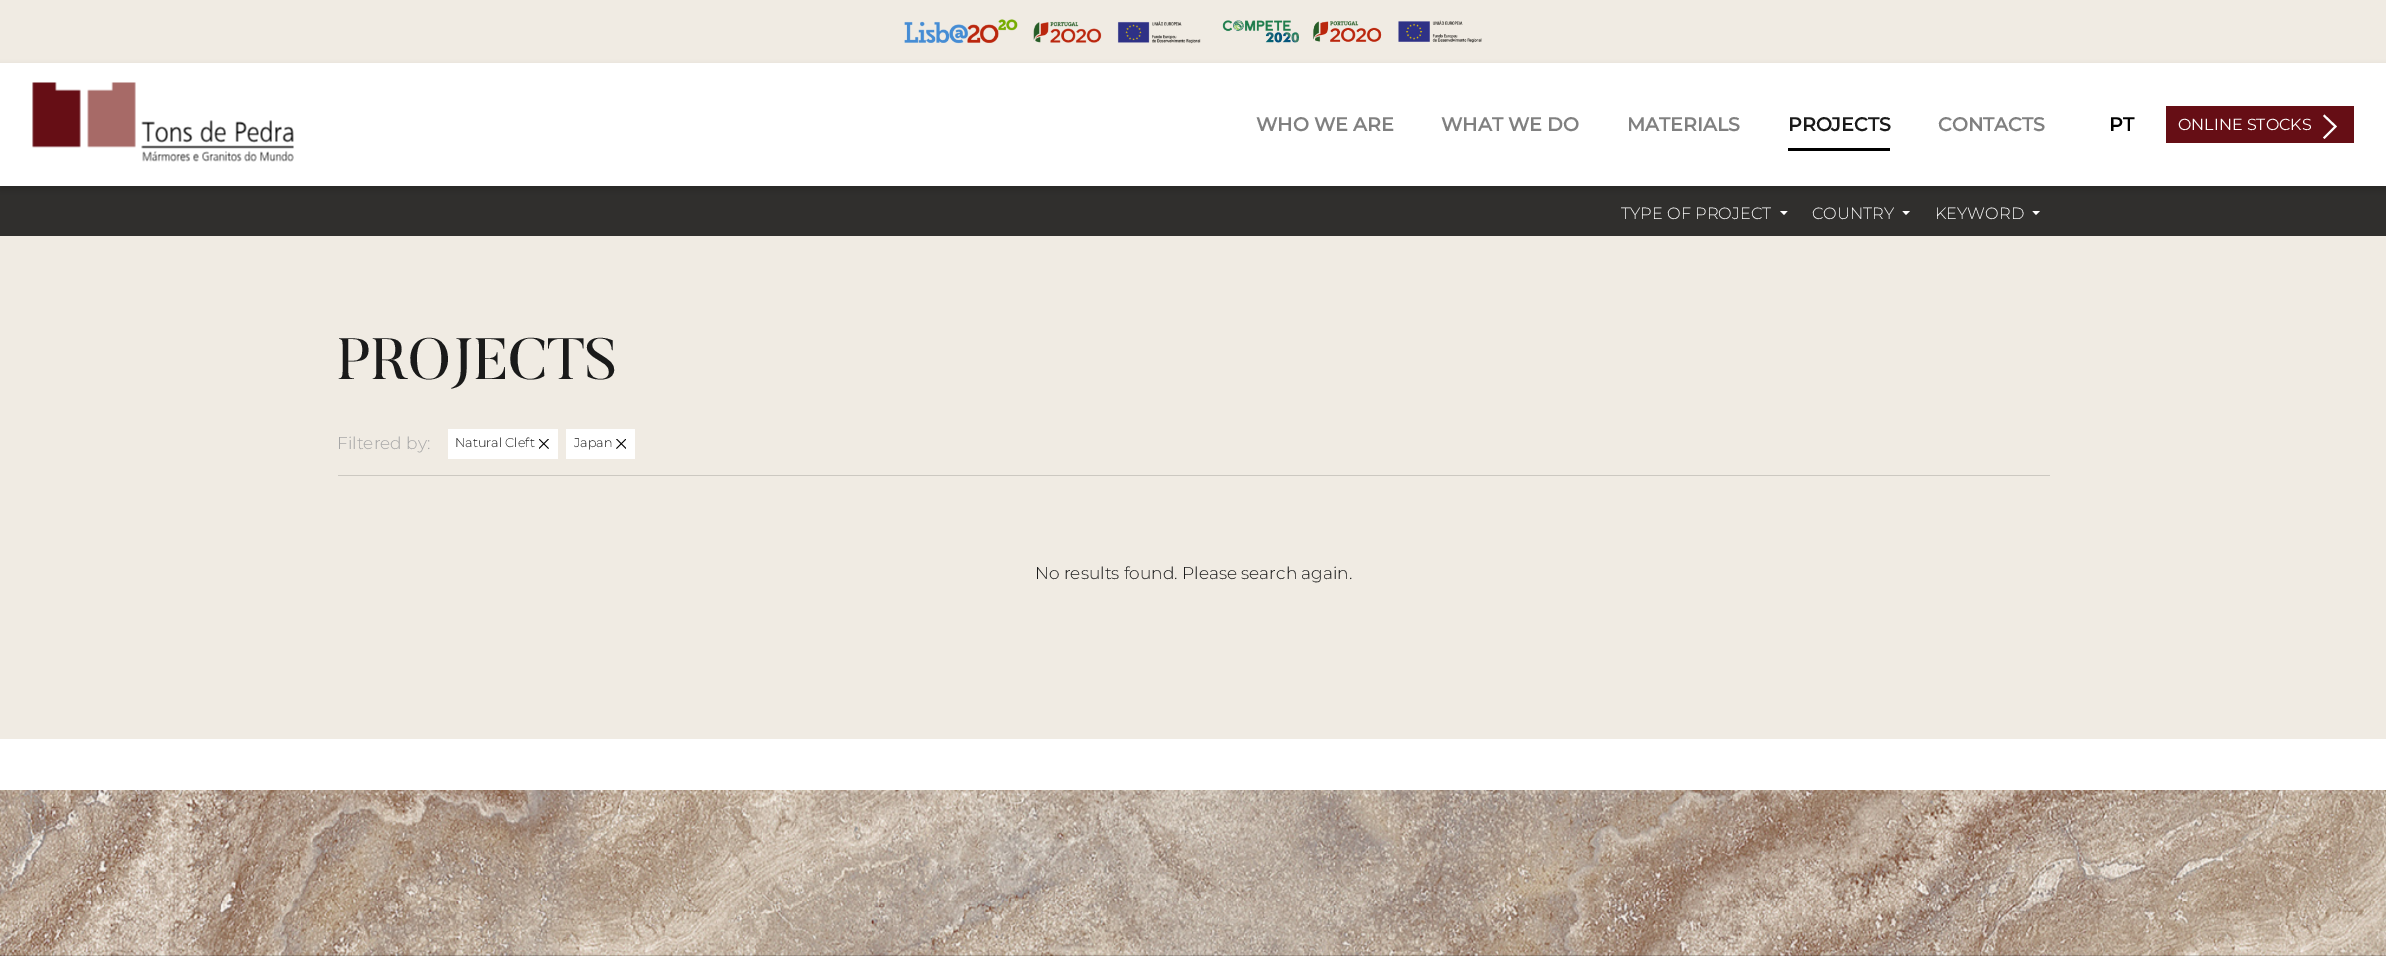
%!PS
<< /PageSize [2386 956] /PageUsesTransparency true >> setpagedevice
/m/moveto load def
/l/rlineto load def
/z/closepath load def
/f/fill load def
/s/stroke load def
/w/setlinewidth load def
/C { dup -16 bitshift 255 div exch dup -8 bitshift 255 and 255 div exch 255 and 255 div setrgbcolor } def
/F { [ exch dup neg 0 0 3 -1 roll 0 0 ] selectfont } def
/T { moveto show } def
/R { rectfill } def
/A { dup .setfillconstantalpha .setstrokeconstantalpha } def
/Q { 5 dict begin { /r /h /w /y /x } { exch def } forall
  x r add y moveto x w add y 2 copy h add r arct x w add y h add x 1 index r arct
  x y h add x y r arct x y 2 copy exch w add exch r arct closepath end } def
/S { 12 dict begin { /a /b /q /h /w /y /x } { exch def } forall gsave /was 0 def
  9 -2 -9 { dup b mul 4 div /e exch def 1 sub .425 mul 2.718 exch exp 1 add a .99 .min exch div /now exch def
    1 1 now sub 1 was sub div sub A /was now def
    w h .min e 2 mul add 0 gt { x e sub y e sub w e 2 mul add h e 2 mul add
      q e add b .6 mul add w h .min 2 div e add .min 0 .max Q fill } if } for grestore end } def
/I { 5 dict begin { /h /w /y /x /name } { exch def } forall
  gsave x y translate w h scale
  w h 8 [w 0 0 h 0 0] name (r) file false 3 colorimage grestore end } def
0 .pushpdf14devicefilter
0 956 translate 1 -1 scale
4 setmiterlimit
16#F0EBE3 C
0 0 2386 956 R
(1.rgb) 904 19 297 25 I
(2.rgb) 1222 20 260 23 I
16#000000 C
0 66 2386 124 0 3 .15 S
16#FFFFFF C
0 63 2386 123 R
(3.rgb) 32 82 262 80 I
/Montserrat-Bold 19 F
16#808080 C
(WHO WE ARE) 1256 131 T
(WHAT WE DO) 1441 131 T
(MATERIALS) 1627 131 T
16#1A1A1A C
(PROJECTS) 1788 131 T
16#000000 C
1788 148 102 3 R
16#808080 C
(CONTACTS) 1938 131 T
16#000000 C
(PT) 2109 131 T
16#660E15 C
2166 106 188 37 R
/Montserrat-Regular 16 F
16#FFFFFF C
(ONLINE STOCKS) 2178 130 T
2 w
2 setlinecap
2324.5 137.5 m 11 -11 l -11 -10.5 l s
0.8 A
16#000000 C
0 186 2386 50 R
/Montserrat-Light 16.25 F
1 A
16#FFFFFF C
(TYPE OF PROJECT) 1621 219 T
1780 211 m 7.5 0 l -3.5 4 l z f
(COUNTRY) 1812 219 T
1902.5 211 m 7.5 0 l -4 4 l z f
(KEYWORD) 1935 219 T
2032.5 211 m 7.5 0 l -4 4 l z f
0 739 2386 217 R
/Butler-Regular 58 F
16#1A1A1A C
(PROJECTS) 337 379 T
16#CCC8C1 C
338 475 1712 1 R
/Montserrat-Light 17 F
16#A6A6A6 C
(Filtered by:) 337 449 T
16#FFFFFF C
448 429 110 30 R
/Montserrat-Light 12.75 F
16#1A1A1A C
(Natural Cleft) 455 447 T
(4.rgb) 539 439 10 10 I
16#FFFFFF C
566 429 69 30 R
16#1A1A1A C
(Japan) 574 447 T
(5.rgb) 616 439 10 10 I
/Montserrat-Light 17 F
(No results found. Please search again.) 1035 579 T
(6.rgb) 0 790 2386 166 I
.poppdf14devicefilter showpage
